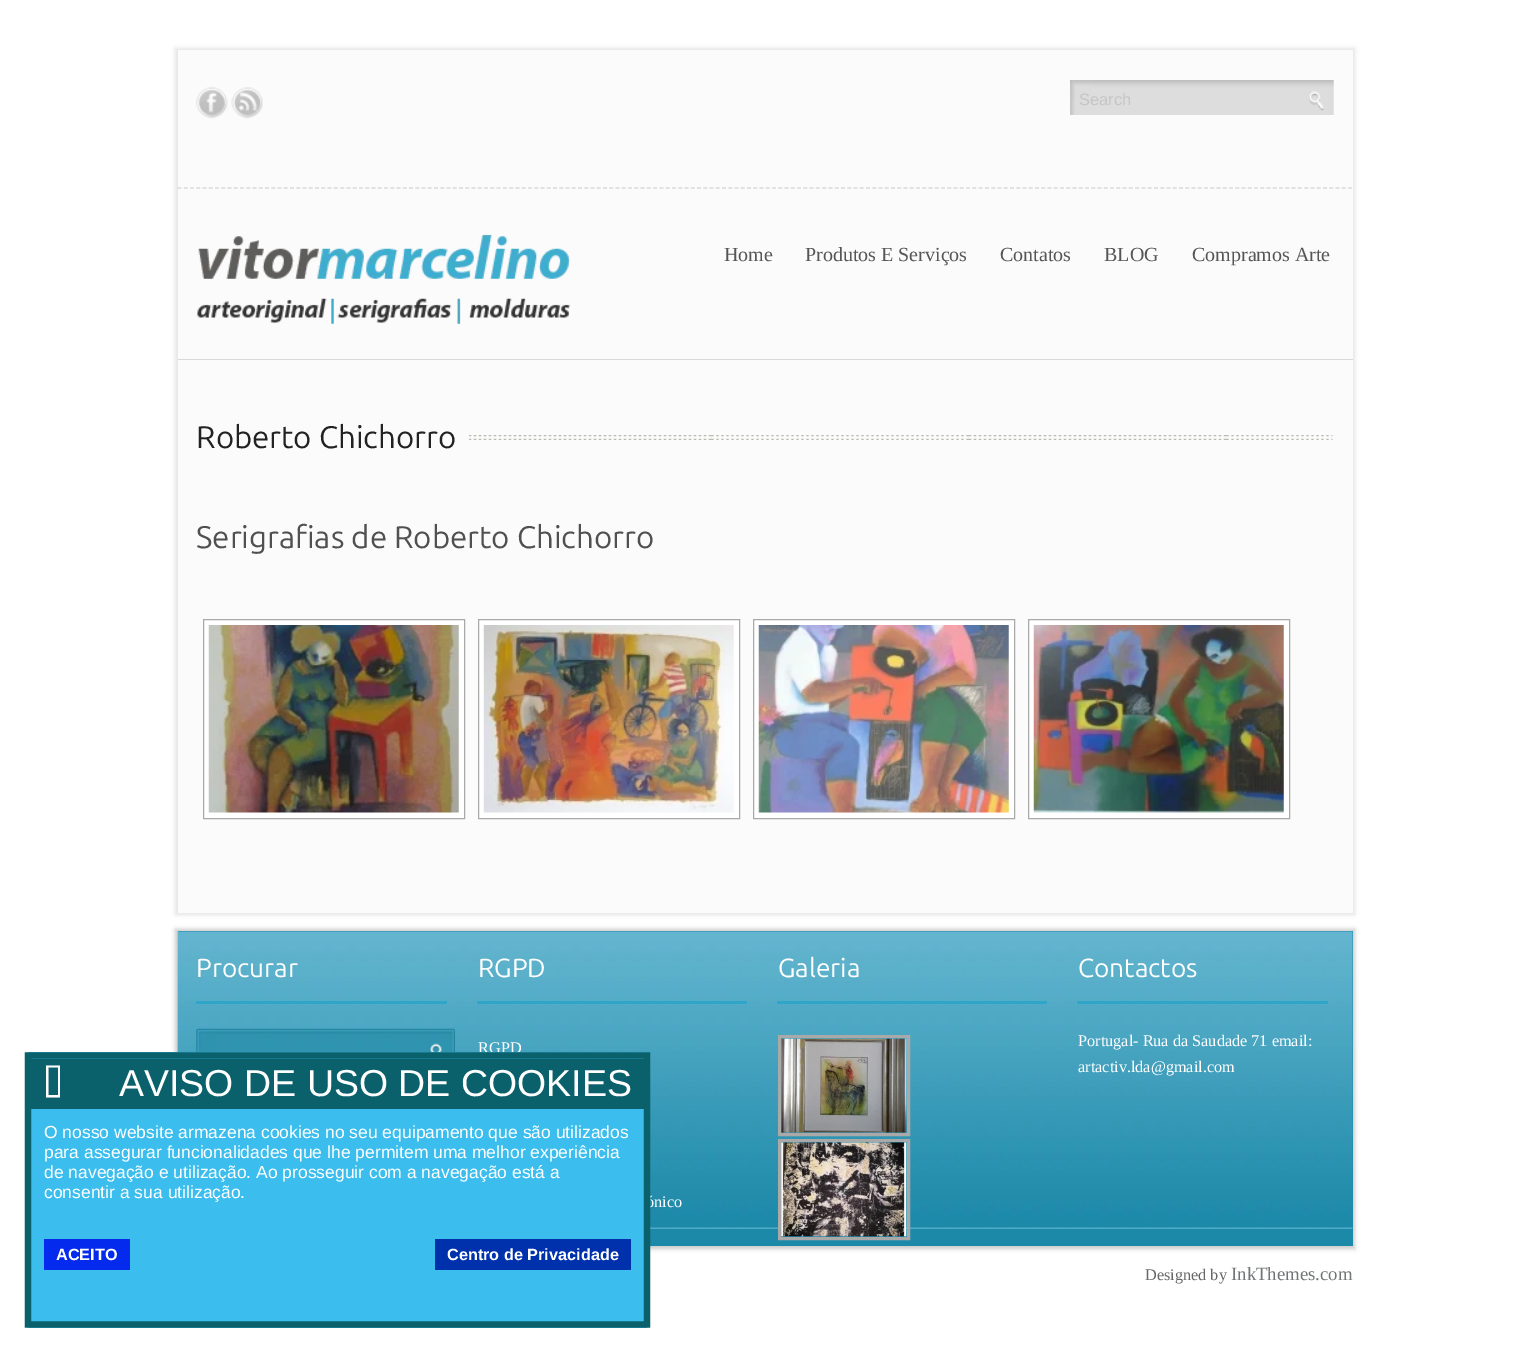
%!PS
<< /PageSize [1530 1352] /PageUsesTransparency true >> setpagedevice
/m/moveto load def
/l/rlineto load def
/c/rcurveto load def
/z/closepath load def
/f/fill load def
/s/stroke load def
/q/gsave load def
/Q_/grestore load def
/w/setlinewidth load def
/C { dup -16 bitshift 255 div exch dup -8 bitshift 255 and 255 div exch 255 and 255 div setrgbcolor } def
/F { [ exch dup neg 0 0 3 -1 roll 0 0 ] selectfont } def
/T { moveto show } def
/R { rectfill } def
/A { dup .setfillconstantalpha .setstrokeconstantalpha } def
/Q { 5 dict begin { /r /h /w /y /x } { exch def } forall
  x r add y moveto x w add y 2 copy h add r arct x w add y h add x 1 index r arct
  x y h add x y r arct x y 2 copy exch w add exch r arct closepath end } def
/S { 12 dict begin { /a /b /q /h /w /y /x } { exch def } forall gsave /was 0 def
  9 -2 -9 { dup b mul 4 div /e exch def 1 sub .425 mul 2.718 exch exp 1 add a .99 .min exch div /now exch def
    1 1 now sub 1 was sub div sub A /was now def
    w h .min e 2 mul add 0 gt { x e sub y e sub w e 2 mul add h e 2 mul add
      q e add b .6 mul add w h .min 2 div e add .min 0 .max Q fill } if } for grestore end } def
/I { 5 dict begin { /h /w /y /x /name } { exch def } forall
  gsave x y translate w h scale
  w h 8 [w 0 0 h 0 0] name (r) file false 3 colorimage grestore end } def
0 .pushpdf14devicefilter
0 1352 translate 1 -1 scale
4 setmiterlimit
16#FFFFFF C
0 0 1530 1352 R
16#000000 C
175 48 1180 867 0 2 .1 S
16#FBFBFB C
178 50 1175 863 R
16#D9D9D9 C
1.2 w
[3.75 2.51] 0 setdash
177.5 188 m 1175 0 l s
(1.rgb) 196 87 32 32 I
(2.rgb) 231 87 32 32 I
(3.rgb) 1070 80 264 35 I
/LiberationSans-Regular 16.5 F
16#C5C5C5 C
(Search) 1079 105 T
(4.rgb) 1309 91 15 20 I
(5.rgb) 197 234 373 90 I
/LiberationSerif-Regular 20 F
16#565656 C
(Home) 724 261 T
(Produtos E Serviços) 805 261 T
(Contatos) 1000 261 T
(BLOG) 1104 261 T
(Compramos Arte) 1192 261 T
16#D9D9D9 C
178 359 1175 1 R
(6.rgb) 469 435 864 5 I
/Ubuntu-Regular 31.25 F
16#222222 C
(Roberto Chichorro) 196 448 T
16#505050 C
(Serigrafias de Roberto Chichorro) 196 548 T
16#FFFFFF C
203.5 619.5 m 261 0 l 0 199 l -261 0 l z q f Q_
16#A9A9A9 C
1 w
[] 0 setdash
s
(7.rgb) 208 625 251 188 I
16#FFFFFF C
478.5 619.5 m 261 0 l 0 199 l -261 0 l z q f Q_
16#A9A9A9 C
s
(8.rgb) 483 625 251 188 I
16#FFFFFF C
753.5 619.5 m 261 0 l 0 199 l -261 0 l z q f Q_
16#A9A9A9 C
s
(9.rgb) 758 625 251 188 I
16#FFFFFF C
1028.5 619.5 m 261 0 l 0 199 l -261 0 l z q f Q_
16#A9A9A9 C
s
(10.rgb) 1033 625 251 188 I
16#000000 C
175 929 1180 320 0 2 .2 S
16#1D89A9 C
178 931 1175 315 R
(11.rgb) 177 931 1176 298 I
16#2FA6C9 C
196 1001 251 3 R
/Ubuntu-Regular 26.25 F
16#FFFFFF C
(Procurar) 196 977 T
(12.rgb) 196 1028 259 24 I
(13.rgb) 430 1043 12 9 I
16#2FA6C9 C
477 1001 270 3 R
16#FFFFFF C
(RGPD) 478 977 T
/LiberationSerif-Regular 16.25 F
(RGPD) 478 1053 T
(ónico) 646 1207 T
16#2FA6C9 C
777 1001 270 3 R
/Ubuntu-Regular 26.25 F
16#FFFFFF C
(Galeria) 778 977 T
16#A9A9A9 C
3 w
779.5 1036.5 129 98 rectstroke
(14.rgb) 781 1038 126 95 I
779.5 1140.5 129 98 rectstroke
(15.rgb) 781 1142 126 95 I
16#2FA6C9 C
1077 1001 251 3 R
16#FFFFFF C
(Contactos) 1078 977 T
/LiberationSerif-Regular 16.25 F
(Portugal- Rua da Saudade 71 email:) 1078 1046 T
(artactiv.lda@gmail.com) 1078 1072 T
16#666666 C
(Designed by) 1145 1280 T
/LiberationSerif-Regular 18.75 F
16#727576 C
(InkThemes.com) 1231 1280 T
16#3BBEED C
31 1052 m 613 0 l 3 0 6 2 6 3 c 0 270 l 0 1 -3 3 -6 3 c -613 0 l -3 0 -6 -2 -6 -3 c 0 -270 l 0 -1 3 -3 6 -3 c z f
16#0A606B C
6.2 w
31 1055.5 m 616 0 l 0 269 l -619 0 l 0 -269 l z s
31 1059 613 50 R
16#FFFFFF C
48.5 1095 m 9.5 0 l 0 -27.5 l -9.5 0 l z 46 1097.5 m 0 -32 l 14 0 l 0 32 l z f
/LiberationSans-Regular 37.5 F
(AVISO DE USO DE COOKIES) 119 1096 T
/LiberationSans-Regular 17.5 F
(O nosso website armazena cookies no seu equipamento que são utilizados) 44 1138 T
(para assegurar funcionalidades que lhe permitem uma melhor experiência) 44 1158 T
(de navegação e utilização. Ao prosseguir com a navegação está a) 44 1178 T
(consentir a sua utilização.) 44 1198 T
16#032AED C
44 1239 86 31 R
/LiberationSans-Bold 16.25 F
16#FFFFFF C
(ACEITO) 56 1260 T
16#0031AD C
435 1239 196 31 R
16#FFFFFF C
(Centro de Privacidade) 447 1260 T
.poppdf14devicefilter showpage
